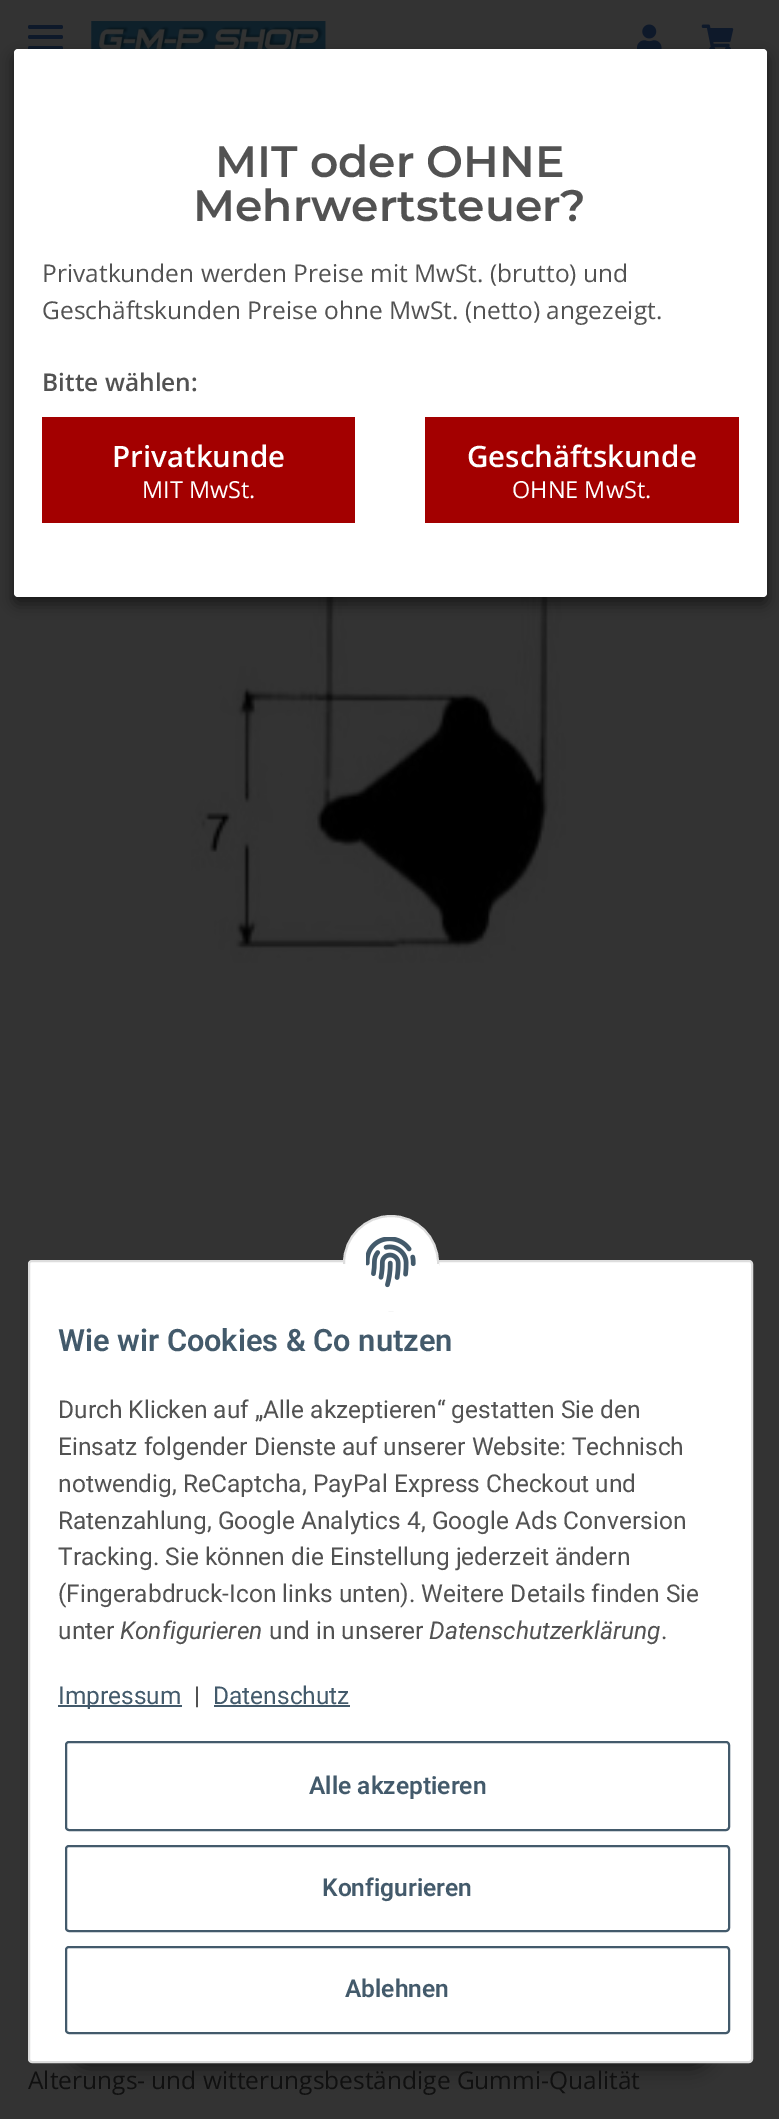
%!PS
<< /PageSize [779 2119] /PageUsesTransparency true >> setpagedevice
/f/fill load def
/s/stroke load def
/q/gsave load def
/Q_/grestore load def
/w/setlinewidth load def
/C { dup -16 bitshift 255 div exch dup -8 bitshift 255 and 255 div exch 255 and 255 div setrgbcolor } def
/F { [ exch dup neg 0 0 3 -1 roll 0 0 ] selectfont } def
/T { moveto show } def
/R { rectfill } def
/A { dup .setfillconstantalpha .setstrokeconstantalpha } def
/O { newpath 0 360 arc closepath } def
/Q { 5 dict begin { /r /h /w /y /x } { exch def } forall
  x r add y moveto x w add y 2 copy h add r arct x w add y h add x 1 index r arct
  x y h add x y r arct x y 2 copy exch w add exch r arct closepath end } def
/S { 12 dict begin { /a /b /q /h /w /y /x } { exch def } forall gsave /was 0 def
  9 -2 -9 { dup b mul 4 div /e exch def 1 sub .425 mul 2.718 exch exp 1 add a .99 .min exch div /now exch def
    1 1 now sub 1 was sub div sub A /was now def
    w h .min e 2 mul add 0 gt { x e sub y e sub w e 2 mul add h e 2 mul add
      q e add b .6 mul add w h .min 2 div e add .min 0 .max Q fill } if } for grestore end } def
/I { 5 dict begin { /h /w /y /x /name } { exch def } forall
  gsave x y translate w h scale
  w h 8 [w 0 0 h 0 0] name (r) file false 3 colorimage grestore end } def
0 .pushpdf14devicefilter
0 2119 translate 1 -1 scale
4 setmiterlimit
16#333333 C
0 0 779 2119 R
16#0E192A C
28 35 35 4 2 Q f
28 25 35 4 2 Q f
28 46 35 4 2 Q f
(1.rgb) 91 21 235 28 I
(2.rgb) 637 24 25 25 I
(3.rgb) 701 24 33 25 I
(5.rgb) 191 597 375 366 I
16#000000 C
14 56 753 548 4 7 .5 S
16#FFFFFF C
14 49 753 548 4 Q f
/Montserrat-SemiBold 44 F
16#525252 C
(MIT oder OHNE) 215 177 T
(Mehrwertsteuer?) 193 221 T
/OpenSans-Regular 24.5 F
(Privatkunden werden Preise mit MwSt. \(brutto\) und) 42 282 T
(Geschäftskunden Preise ohne MwSt. \(netto\) angezeigt.) 42 319 T
/OpenSans-SemiBold 24.5 F
(Bitte wählen:) 42 391 T
16#A30000 C
42 417 313 106 R
/OpenSans-SemiBold 29.5 F
16#FFFFFF C
(Privatkunde) 112 467 T
/OpenSans-Regular 23.5 F
(MIT MwSt.) 142 498 T
16#A30000 C
425 417 314 106 R
/OpenSans-SemiBold 29.5 F
16#FFFFFF C
(Geschäftskunde) 467 467 T
/OpenSans-Regular 23.5 F
(OHNE MwSt.) 512 498 T
16#000000 C
67 2013 647 56 28 9 .45 S
16#FFFFFF C
29 1261 723 801 3 Q q f Q_
16#DDDDDD C
2 w
s
16#FFFFFF C
391 1263 47 O q f Q_
16#DDDDDD C
s
16#FFFFFF C
343 1264 96 47 R
(4.rgb) 366 1237 50 51 I
/Roboto-SemiBold 30.75 F
16#435A6B C
(Wie wir Cookies & Co nutzen) 58 1351 T
/Roboto-Regular 24.5 F
16#525252 C
(Durch Klicken auf „Alle akzeptieren“ gestatten Sie den) 58 1418 T
(Einsatz folgender Dienste auf unserer Website: Technisch) 58 1455 T
(notwendig, ReCaptcha, PayPal Express Checkout und) 58 1492 T
(Ratenzahlung, Google Analytics 4, Google Ads Conversion) 58 1529 T
(Tracking. Sie können die Einstellung jederzeit ändern) 58 1565 T
(\(Fingerabdruck-Icon links unten\). Weitere Details finden Sie) 58 1602 T
(unter) 58 1639 T
/Roboto-Italic 24.5 F
(Konfigurieren) 120 1639 T
/Roboto-Regular 24.5 F
(und in unserer) 269 1639 T
/Roboto-Italic 24.5 F
(Datenschutzerklärung) 429 1639 T
/Roboto-Regular 24.5 F
(.) 661 1639 T
16#435A6B C
58 1705 124 2 R
(Impressum) 58 1704 T
16#525252 C
(|) 194 1704 T
16#435A6B C
(Datenschutz) 213 1704 T
214 1705 136 2 R
66 1742 663 88 3 Q s
/Roboto-SemiBold 24.5 F
(Alle akzeptieren) 309 1794 T
66 1846 663 85 3 Q s
(Konfigurieren) 322 1896 T
66 1947 663 86 3 Q s
(Ablehnen) 345 1997 T
/OpenSans-Regular 24.5 F
16#101010 C
(Alterungs- und witterungsbeständige Gummi-Qualität) 28 2089 T
.poppdf14devicefilter showpage
